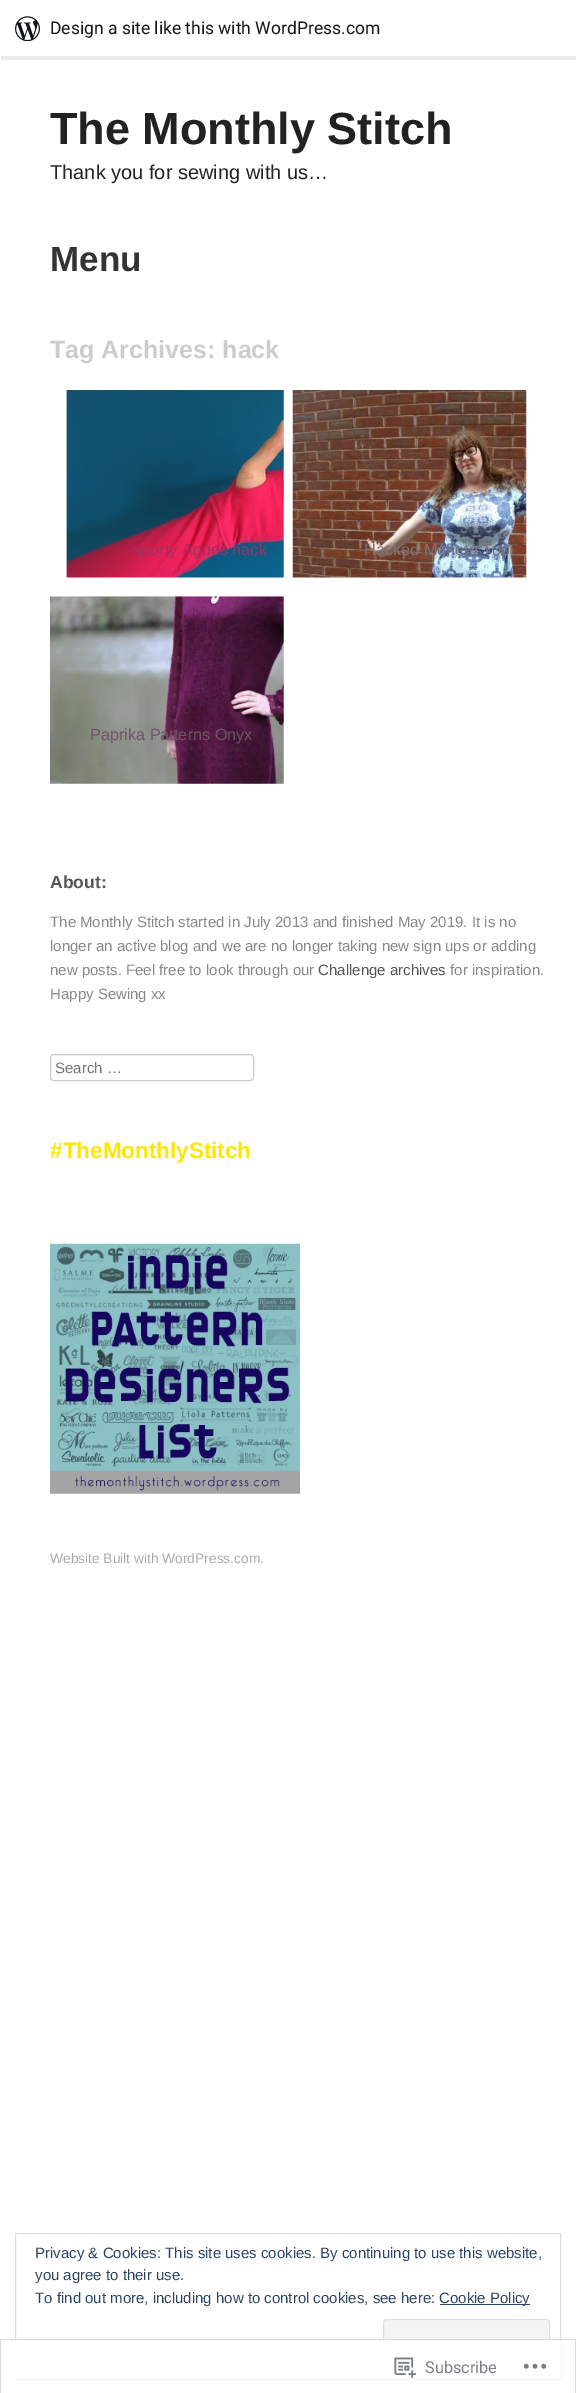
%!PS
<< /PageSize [576 2393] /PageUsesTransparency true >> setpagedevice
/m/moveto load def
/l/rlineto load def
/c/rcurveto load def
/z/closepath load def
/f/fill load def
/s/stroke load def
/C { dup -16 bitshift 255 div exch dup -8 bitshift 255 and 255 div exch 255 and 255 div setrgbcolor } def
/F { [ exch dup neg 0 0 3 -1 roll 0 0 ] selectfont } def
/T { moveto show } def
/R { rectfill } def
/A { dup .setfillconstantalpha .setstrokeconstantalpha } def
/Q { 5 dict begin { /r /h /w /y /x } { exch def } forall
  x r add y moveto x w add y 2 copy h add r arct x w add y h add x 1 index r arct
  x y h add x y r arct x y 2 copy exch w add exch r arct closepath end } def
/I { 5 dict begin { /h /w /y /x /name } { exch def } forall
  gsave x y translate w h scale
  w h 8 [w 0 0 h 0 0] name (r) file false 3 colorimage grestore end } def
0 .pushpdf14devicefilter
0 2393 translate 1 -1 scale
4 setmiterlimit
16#FFFFFF C
0 0 576 2393 R
0.08 A
16#000000 C
1 56 m 0 4 l 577 0 l 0 -56 l -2 0 l 0 52 l z f
1 A
(1.rgb) 15 16 25 25 I
/Roboto-Regular 17.5 F
16#171717 C
(Design a site like this with WordPress.com) 50 34 T
/LiberationSans-Bold 45 F
16#222222 C
(The Monthly Stitch) 50 144 T
/LiberationSans-Regular 20 F
(Thank you for sewing with us…) 50 179 T
/LiberationSans-Bold 35 F
16#333333 C
(Menu) 50 271 T
/LiberationSans-Bold 25 F
16#CCCCCC C
(Tag Archives: hack) 50 358 T
(2.rgb) 66 390 218 188 I
/LiberationSans-Regular 16.25 F
16#9E3160 C
(sporty Agnes hack) 133 555 T
(3.rgb) 292 390 235 188 I
16#7E737A C
(Hacked Moneta Top) 364 555 T
(4.rgb) 50 596 234 188 I
16#6F5565 C
(Paprika Patterns Onyx) 90 740 T
/LiberationSans-Bold 17.5 F
16#555555 C
(About:) 50 888 T
/LiberationSans-Regular 15 F
16#888888 C
(The Monthly Stitch started in July 2013 and finished May 2019. It is no) 50 927 T
(longer an active blog and we are no longer taking new sign ups or adding) 50 951 T
(new posts. Feel free to look through our) 50 975 T
16#555555 C
(Challenge archives) 318 975 T
16#888888 C
(for inspiration.) 450 975 T
(Happy Sewing xx) 50 999 T
16#CCCCCC C
50.5 1054.5 203 26 3.5 Q s
16#757575 C
(Search …) 55 1073 T
/LiberationSans-Bold 22.5 F
16#FEE600 C
(#TheMonthlyStitch) 50 1158 T
(5.rgb) 50 1243 250 251 I
/LiberationSans-Regular 13.75 F
16#AAAAAA C
(Website Built with WordPress.com.) 50 1563 T
16#DEDEDE C
15.5 2233.5 545 145 rectstroke
/LiberationSans-Regular 15 F
16#2E4467 C
(Privacy & Cookies: This site uses cookies. By continuing to use this website,) 35 2258 T
(you agree to their use.) 35 2280 T
(To find out more, including how to control cookies, see here:) 35 2303 T
440 2304 90 1 R
(Cookie Policy) 439 2303 T
16#F3F3F3 C
383 2319 167 49 4 Q f
16#F9F9F9 C
386 2321 m 160 0 l 2 0 3 1 3 3 c 0 -2 0 -4 -3 -4 c -160 0 l -2 0 -2 2 -2 4 c 0 -2 1 -3 2 -3 c z f
16#DEDEDE C
383.5 2319.5 166 48 3.5 Q s
0.98 A
16#FFFFFF C
15 2339 546 40 R
16#DCDCDE C
.5 2339.5 575 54 rectstroke
1 A
(6.rgb) 394 2357 22 21 I
/Roboto-Regular 16.25 F
16#7B7F84 C
(Subscribe) 425 2373 T
(7.rgb) 523 2363 24 6 I
.poppdf14devicefilter showpage
